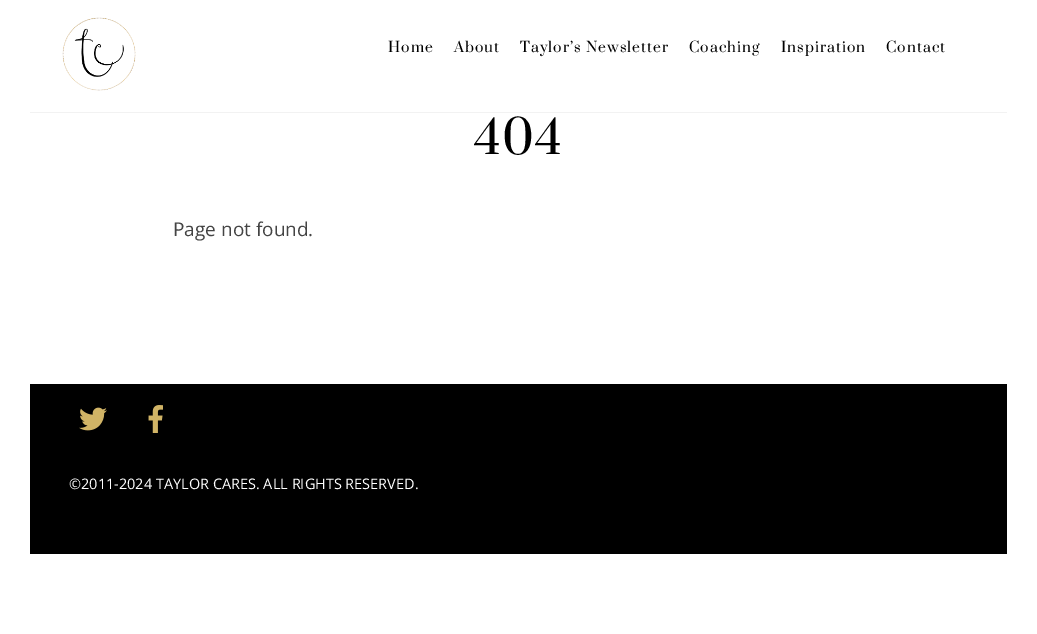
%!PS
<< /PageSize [1037 634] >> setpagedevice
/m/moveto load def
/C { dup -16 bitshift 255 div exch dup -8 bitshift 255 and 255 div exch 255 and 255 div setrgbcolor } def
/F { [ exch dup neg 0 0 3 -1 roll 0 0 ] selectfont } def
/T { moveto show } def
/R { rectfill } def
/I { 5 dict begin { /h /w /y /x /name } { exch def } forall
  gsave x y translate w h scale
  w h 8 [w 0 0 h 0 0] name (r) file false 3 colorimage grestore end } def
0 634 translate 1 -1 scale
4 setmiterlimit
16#FFFFFF C
0 0 1037 634 R
16#F2F2F2 C
30 112 977 1 R
(1.rgb) 62 17 74 74 I
/Prata-Regular 14 F
16#000000 C
388 52 m 1 0 (Home) ashow
454 52 m 1 0 (About) ashow
520 52 m 1 0 (Taylor’s Newsletter) ashow
689 52 m 1 0 (Coaching) ashow
781 52 m 1 0 (Inspiration) ashow
886 52 m 1 0 (Contact) ashow
/Prata-Regular 46 F
474 154 m 1 0 (404) ashow
/OpenSans-Regular 19 F
16#444444 C
(Page not found.) 173 236 T
16#000000 C
30 384 977 170 R
(2.rgb) 79 407 28 24 I
(3.rgb) 148 405 15 28 I
/OpenSans-Regular 14.5 F
16#FFFFFF C
(©2011-2024 TAYLOR CARES. ALL RIGHTS RESERVED.) 69 489 T
showpage
